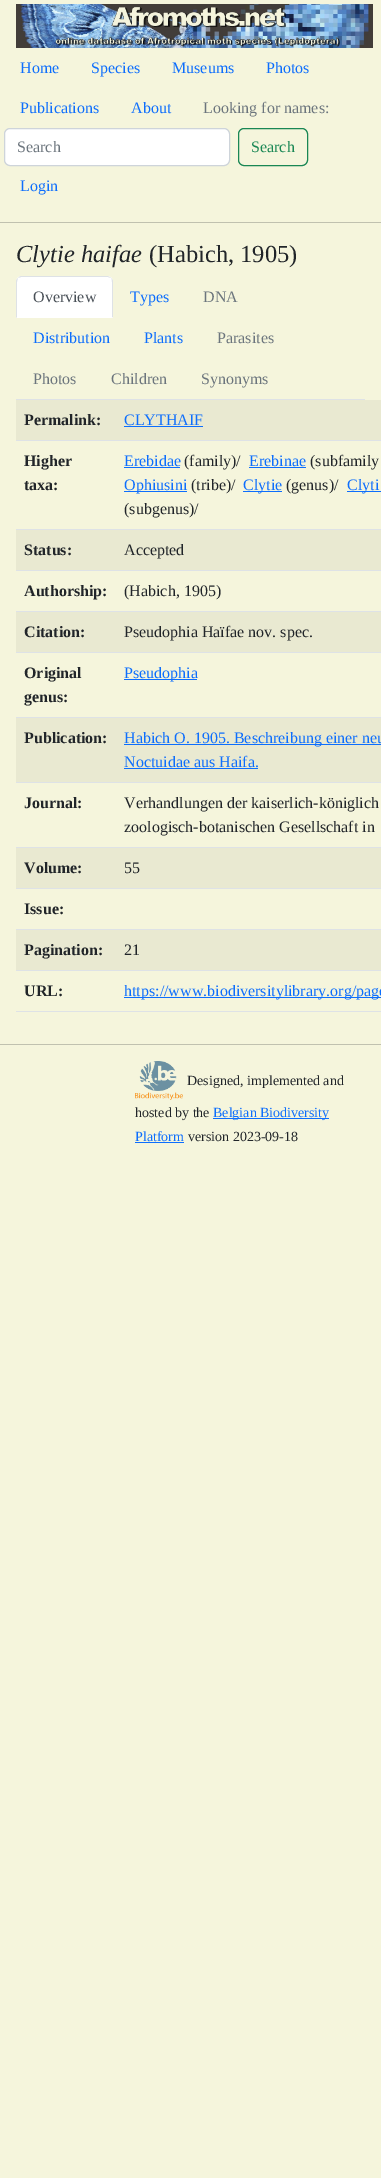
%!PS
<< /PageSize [381 2178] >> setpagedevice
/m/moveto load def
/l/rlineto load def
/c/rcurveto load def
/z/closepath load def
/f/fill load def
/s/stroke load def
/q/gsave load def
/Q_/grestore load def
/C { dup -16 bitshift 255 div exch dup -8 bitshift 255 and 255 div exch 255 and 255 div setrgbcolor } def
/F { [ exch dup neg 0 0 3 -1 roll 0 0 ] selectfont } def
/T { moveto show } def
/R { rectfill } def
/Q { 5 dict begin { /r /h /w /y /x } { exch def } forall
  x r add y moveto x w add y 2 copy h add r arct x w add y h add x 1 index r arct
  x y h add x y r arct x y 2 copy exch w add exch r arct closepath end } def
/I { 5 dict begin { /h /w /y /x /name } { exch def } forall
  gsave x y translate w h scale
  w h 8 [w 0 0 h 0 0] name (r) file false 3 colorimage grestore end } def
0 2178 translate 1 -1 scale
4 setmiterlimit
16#F5F5DC C
0 0 381 2178 R
(1.rgb) 16 4 357 44 I
/LiberationSerif-Regular 16 F
16#0D6EFD C
(Home) 20 73 T
(Species) 91 73 T
(Museums) 172 73 T
(Photos) 266 73 T
(Publications) 20 113 T
(About) 131 113 T
16#6C757D C
(Looking for names:) 203 113 T
16#FFFFFF C
4.5 128.5 225 37 5.5 Q q f Q_
16#CED4DA C
s
16#6C757D C
(Search) 17 152 T
16#198754 C
238.5 128.5 69 37 5.5 Q s
(Search) 251 152 T
16#0D6EFD C
(Login) 20 191 T
16#C0C1AF C
0 222 381 1 R
/LiberationSerif-Italic 24.5 F
16#212529 C
(Clytie haifae) 16 262 T
/LiberationSerif-Regular 24.5 F
(\(Habich, 1905\)) 149 262 T
16#DEE2E6 C
16 399 349 1 R
16#FFFFFF C
22 276 m 85 0 l 3.5 0 6 2.5 6 6 c 0 36 l -97 0 l 0 -36 l 0 -3.5 2.5 -6 6 -6 c z f
16#DEE2E6 C
22 276 m -2 0 -3 1 -4 2 c 3 -1 l 87 0 l 3 1 l -1 -1 -3 -2 -4 -2 c z f
113 318 m 0 -36 l 0 -2 -1 -3 -2 -4 c 1 1 1 2 1 4 c 0 35 l z f
16#FFFFFF C
113 318 m -1 -1 l -95 0 l -1 1 l z f
16#DEE2E6 C
16 318 m 1 -1 l 0 -35 l 0 -2 1 -3 1 -4 c -1 1 -2 2 -2 4 c z f
/LiberationSerif-Regular 16 F
16#495057 C
(Overview) 33 302 T
16#0D6EFD C
(Types) 130 302 T
16#6C757D C
(DNA) 203 302 T
16#0D6EFD C
(Distribution) 33 343 T
(Plants) 144 343 T
16#6C757D C
(Parasites) 217 343 T
(Photos) 33 384 T
(Children) 111 384 T
(Synonyms) 201 384 T
16#E9E9D1 C
16 400 365 40 R
/LiberationSerif-Bold 16 F
16#212529 C
(Permalink:) 24 425 T
16#DEE2E6 C
16 440 365 1 R
/LiberationSerif-Regular 16 F
16#0D6EFD C
(CLYTHAIF) 124 425 T
124 426 79 1 R
/LiberationSerif-Bold 16 F
16#212529 C
(Higher) 24 466 T
(taxa:) 24 490 T
16#DEE2E6 C
16 529 365 1 R
/LiberationSerif-Regular 16 F
16#0D6EFD C
(Erebidae) 124 466 T
124 467 56 1 R
16#212529 C
(\(family\)/) 184 466 T
16#0D6EFD C
(Erebinae) 249 466 T
249 467 57 1 R
16#212529 C
(\(subfamily) 310 466 T
16#0D6EFD C
124 491 63 1 R
(Ophiusini) 124 490 T
16#212529 C
(\(tribe\)/) 191 490 T
16#0D6EFD C
243 491 39 1 R
(Clytie) 243 490 T
16#212529 C
(\(genus\)/) 286 490 T
16#0D6EFD C
347 491 34 1 R
(Clyti) 347 490 T
16#212529 C
(\(subgenus\)/) 124 514 T
16#E9E9D1 C
16 530 365 40 R
/LiberationSerif-Bold 16 F
16#212529 C
(Status:) 24 555 T
16#DEE2E6 C
16 570 365 1 R
/LiberationSerif-Regular 16 F
16#212529 C
(Accepted) 124 555 T
/LiberationSerif-Bold 16 F
(Authorship:) 24 596 T
16#DEE2E6 C
16 611 365 1 R
/LiberationSerif-Regular 16 F
16#212529 C
(\(Habich, 1905\)) 124 596 T
16#E9E9D1 C
16 612 365 40 R
/LiberationSerif-Bold 16 F
16#212529 C
(Citation:) 24 637 T
16#DEE2E6 C
16 652 365 1 R
/LiberationSerif-Regular 16 F
16#212529 C
(Pseudophia Haïfae nov. spec.) 124 637 T
/LiberationSerif-Bold 16 F
(Original) 24 678 T
(genus:) 24 702 T
16#DEE2E6 C
16 717 365 1 R
16#0D6EFD C
124 679 73 1 R
/LiberationSerif-Regular 16 F
(Pseudophia) 124 678 T
16#E9E9D1 C
16 718 365 64 R
/LiberationSerif-Bold 16 F
16#212529 C
(Publication:) 24 743 T
16#DEE2E6 C
16 782 365 1 R
16#0D6EFD C
124 744 257 1 R
/LiberationSerif-Regular 16 F
(Habich O. 1905. Beschreibung einer neu) 124 743 T
(Noctuidae aus Haifa.) 124 767 T
124 768 134 1 R
/LiberationSerif-Bold 16 F
16#212529 C
(Journal:) 24 808 T
16#DEE2E6 C
16 847 365 1 R
/LiberationSerif-Regular 16 F
16#212529 C
(Verhandlungen der kaiserlich-königlich) 124 808 T
(zoologisch-botanischen Gesellschaft in) 124 832 T
16#E9E9D1 C
16 848 365 40 R
/LiberationSerif-Bold 16 F
16#212529 C
(Volume:) 24 873 T
16#DEE2E6 C
16 888 365 1 R
/LiberationSerif-Regular 16 F
16#212529 C
(55) 124 873 T
/LiberationSerif-Bold 16 F
(Issue:) 24 914 T
16#DEE2E6 C
16 929 365 1 R
16#E9E9D1 C
16 930 365 40 R
16#212529 C
(Pagination:) 24 955 T
16#DEE2E6 C
16 970 365 1 R
/LiberationSerif-Regular 16 F
16#212529 C
(21) 124 955 T
/LiberationSerif-Bold 16 F
(URL:) 24 996 T
16#DEE2E6 C
16 1011 365 1 R
16#0D6EFD C
124 997 257 1 R
/LiberationSerif-Regular 16 F
(https://www.biodiversitylibrary.org/page) 124 996 T
16#C0C1AF C
0 1044 381 1 R
(2.rgb) 135 1061 48 39 I
/LiberationSerif-Regular 14 F
16#212529 C
(Designed, implemented and) 187 1085 T
(hosted by the) 135 1117 T
16#0D6EFD C
213 1118 116 1 R
(Belgian Biodiversity) 213 1117 T
(Platform) 135 1141 T
135 1142 49 1 R
16#212529 C
(version 2023-09-18) 188 1141 T
showpage
